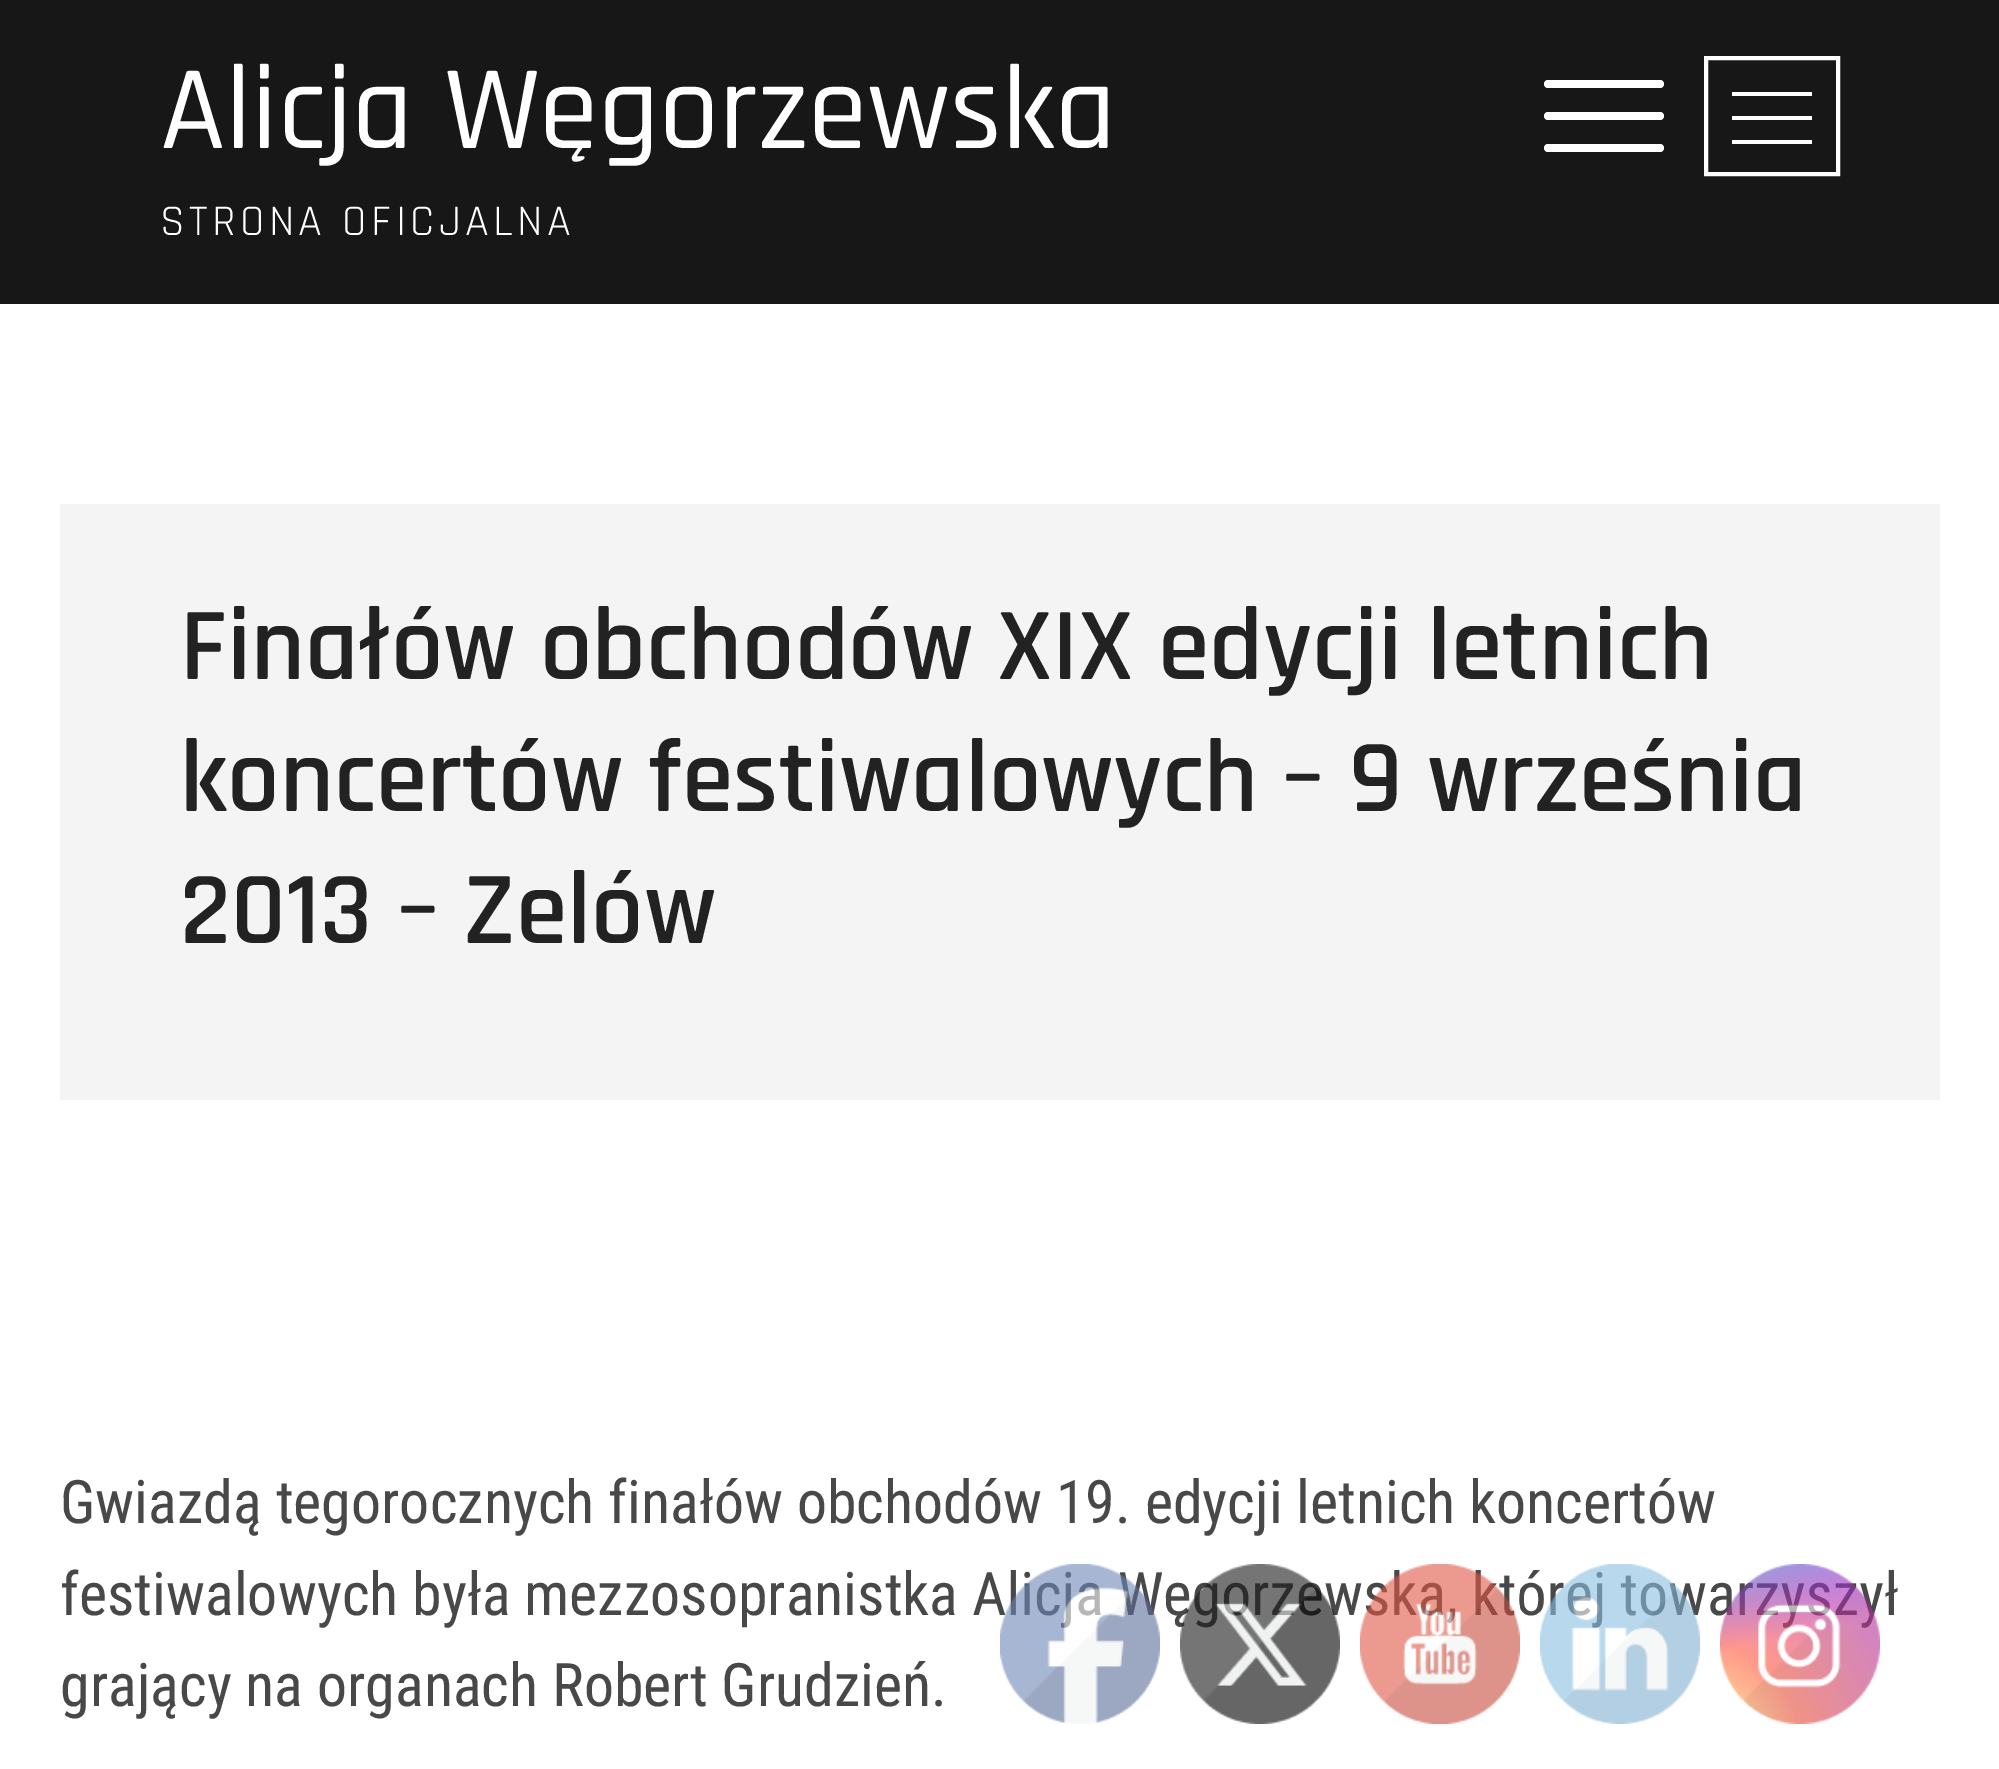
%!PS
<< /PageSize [1999 1769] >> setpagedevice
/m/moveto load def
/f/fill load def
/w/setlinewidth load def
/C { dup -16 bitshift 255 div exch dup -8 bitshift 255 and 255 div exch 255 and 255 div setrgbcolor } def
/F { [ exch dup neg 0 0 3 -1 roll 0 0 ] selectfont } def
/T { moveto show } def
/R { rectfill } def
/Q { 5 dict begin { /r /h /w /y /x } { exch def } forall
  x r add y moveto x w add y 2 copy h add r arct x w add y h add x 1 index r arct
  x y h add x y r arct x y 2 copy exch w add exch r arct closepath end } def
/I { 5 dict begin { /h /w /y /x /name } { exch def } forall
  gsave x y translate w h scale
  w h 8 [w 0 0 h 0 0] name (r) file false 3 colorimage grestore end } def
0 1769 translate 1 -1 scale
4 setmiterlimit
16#FFFFFF C
0 0 1999 1769 R
16#171717 C
0 0 1999 304 R
/Rajdhani-Medium 120 F
16#FFFFFF C
(Alicja Węgorzewska) 160 148 T
/Rajdhani-Regular 44 F
160 235 m 4.4 0 (STRONA OFICJALNA) ashow
1544 112 120 8 4 Q f
1544 80 120 8 4 Q f
1544 144 120 8 4 Q f
4 w
1706 58 132 116 rectstroke
1732 116 80 4 R
1732 92 80 4 R
1732 140 80 4 R
16#F4F4F4 C
60 504 1880 596 R
/Rajdhani-SemiBold 104 F
16#222222 C
(Finałów obchodów XIX edycji letnich) 180 679 T
(koncertów festiwalowych – 9 września) 180 811 T
(2013 – Zelów) 180 943 T
/RobotoCondensed-Regular 60 F
16#484848 C
(Gwiazdą tegorocznych finałów obchodów 19. edycji letnich koncertów) 60 1523 T
(festiwalowych była mezzosopranistka Alicja Węgorzewska, której towarzyszył) 60 1615 T
(grający na organach Robert Grudzień.) 60 1706 T
(1.rgb) 1000 1564 160 160 I
(2.rgb) 1180 1564 160 160 I
(3.rgb) 1360 1564 160 160 I
(4.rgb) 1540 1564 160 160 I
(5.rgb) 1720 1564 160 160 I
showpage
